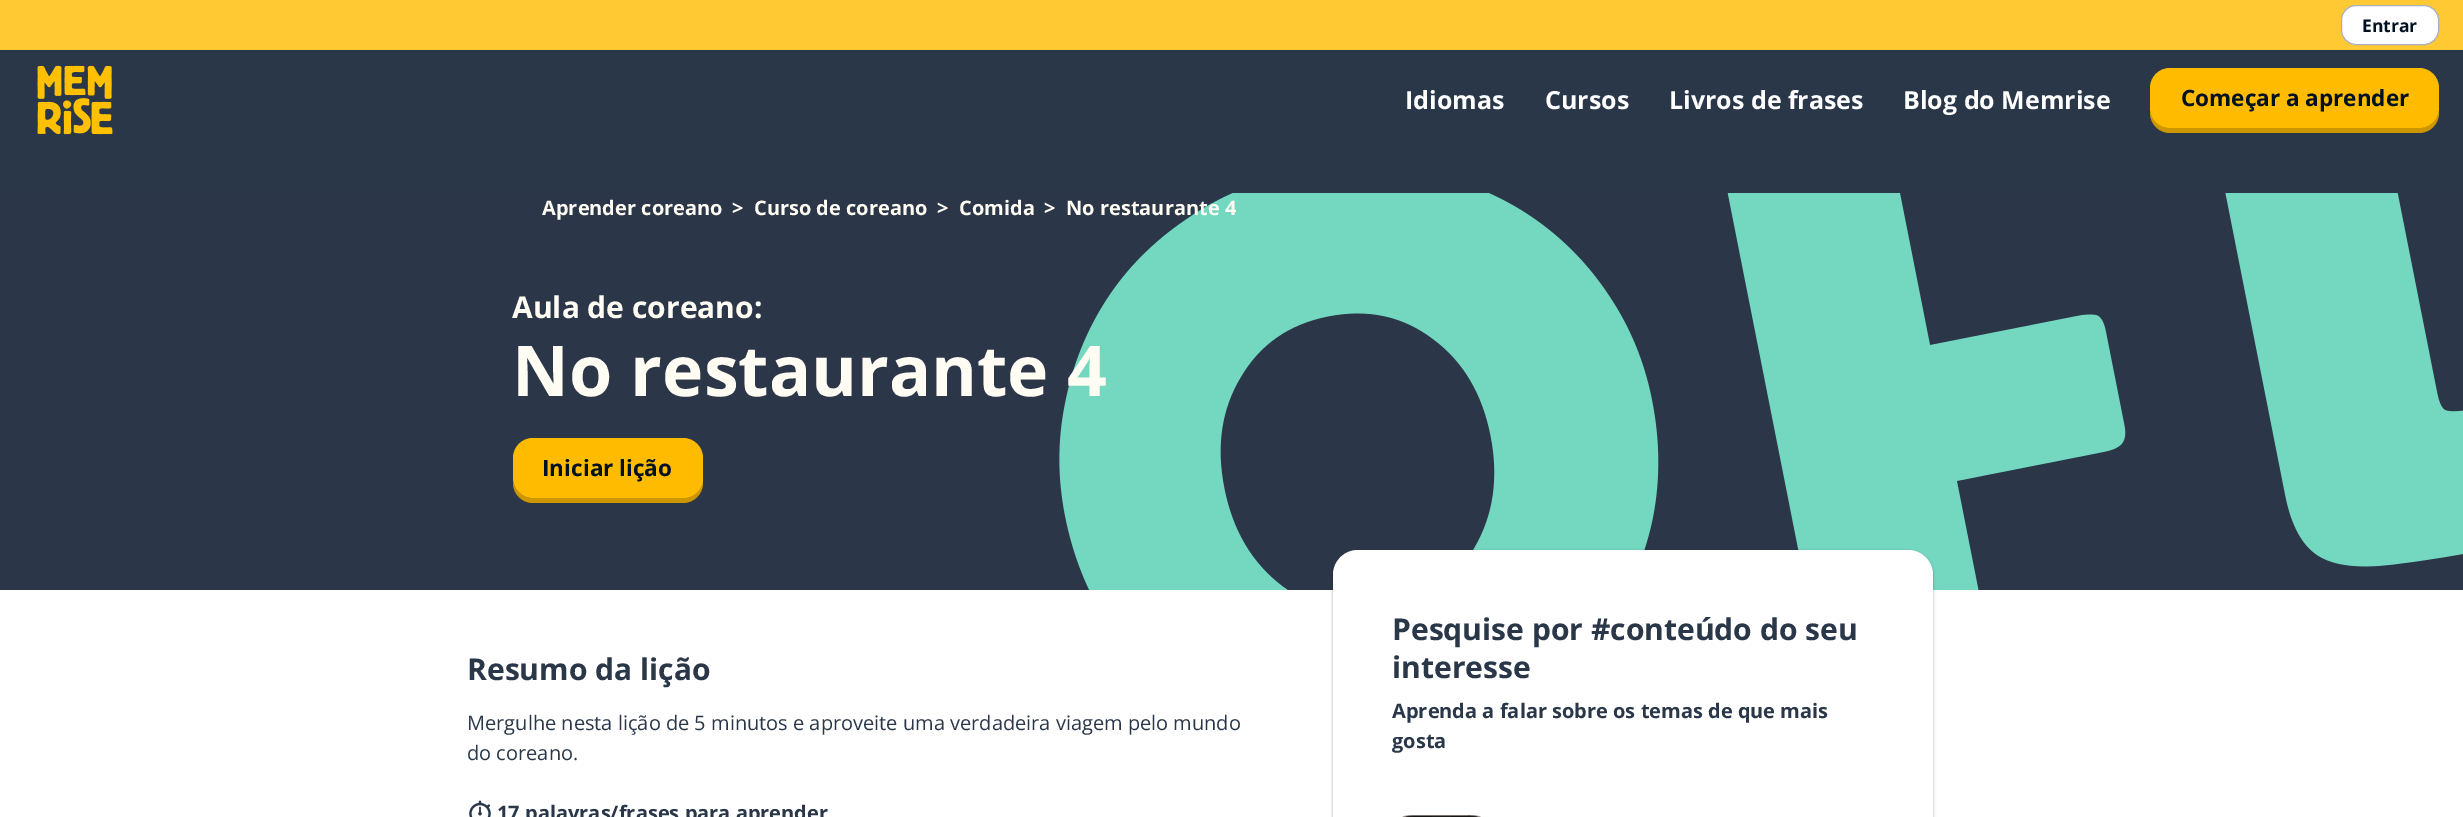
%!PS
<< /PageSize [2463 817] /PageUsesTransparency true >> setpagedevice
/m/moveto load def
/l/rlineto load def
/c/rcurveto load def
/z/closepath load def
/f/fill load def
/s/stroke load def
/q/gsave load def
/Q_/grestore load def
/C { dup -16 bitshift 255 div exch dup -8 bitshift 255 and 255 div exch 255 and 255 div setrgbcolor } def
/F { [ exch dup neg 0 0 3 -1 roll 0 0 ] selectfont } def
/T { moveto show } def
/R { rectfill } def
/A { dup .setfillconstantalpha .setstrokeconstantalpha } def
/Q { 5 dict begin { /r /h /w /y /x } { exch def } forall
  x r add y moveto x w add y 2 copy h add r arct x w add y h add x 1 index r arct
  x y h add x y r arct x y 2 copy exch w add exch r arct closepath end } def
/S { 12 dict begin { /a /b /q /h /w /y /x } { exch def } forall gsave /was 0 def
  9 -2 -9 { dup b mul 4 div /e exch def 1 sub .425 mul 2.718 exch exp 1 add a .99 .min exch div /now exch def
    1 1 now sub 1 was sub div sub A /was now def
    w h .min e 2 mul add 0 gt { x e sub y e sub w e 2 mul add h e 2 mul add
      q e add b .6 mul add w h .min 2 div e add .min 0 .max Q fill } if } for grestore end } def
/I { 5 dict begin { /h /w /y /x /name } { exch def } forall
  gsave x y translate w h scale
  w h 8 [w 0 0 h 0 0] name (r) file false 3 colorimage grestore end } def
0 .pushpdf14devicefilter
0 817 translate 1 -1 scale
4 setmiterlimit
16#FFFFFF C
0 0 2463 817 R
16#FFC933 C
0 0 2463 50 R
16#FFFFFF C
2341.5 5.5 97 39 14.5 Q q f Q_
16#A8AEBA C
s
/OpenSans-Bold 17.5 F
16#001122 C
(Entrar) 2362 32 T
16#293749 C
0 50 2463 143 R
(1.rgb) 37 65 76 70 I
/OpenSans-Bold 25 F
16#FFFFFF C
(Idiomas) 1405 109 T
(Cursos) 1545 109 T
(Livros de frases) 1669 109 T
(Blog do Memrise) 1903 109 T
16#CC9600 C
2150 108 m 0 5 l 0 11 9 20 20 20 c 249 0 l 11 0 20 -9 20 -20 c 0 -23 l 0 18 l 0 11 -9 20 -20 20 c -249 0 l -11 0 -20 -9 -20 -20 c z f
16#FFBB00 C
2150 68 289 60 20 Q f
/OpenSans-Bold 22.5 F
16#001122 C
(Começar a aprender) 2181 106 T
(2.rgb) 0 193 2463 397 I
/OpenSans-Bold 20 F
16#FFFCF3 C
(Aprender coreano) 542 215 T
(>) 732 215 T
(Curso de coreano) 754 215 T
(>) 937 215 T
(Comida) 959 215 T
(>) 1044 215 T
(No restaurante 4) 1066 215 T
/OpenSans-Bold 30 F
(Aula de coreano:) 512 318 T
/OpenSans-Bold 70 F
(No restaurante 4) 512 396 T
16#CC9600 C
513 482 m 0 1 l 0 11 9 20 20 20 c 150 0 l 11 0 20 -9 20 -20 c 0 -20 l -1 -4 l 0 19 l 0 11 -8 20 -20 20 c -150 0 l -9 0 -17 -7 -19 -16 c z f
16#FFBB00 C
513 438 190 60 20 Q f
/OpenSans-Bold 22.5 F
16#001122 C
(Iniciar lição) 542 476 T
/OpenSans-Bold 30 F
16#293749 C
(Resumo da lição) 467 680 T
/OpenSans-Regular 20 F
(Mergulhe nesta lição de 5 minutos e aproveite uma verdadeira viagem pelo mundo) 467 730 T
(do coreano.) 467 760 T
(3.rgb) 469 800 22 17 I
/OpenSans-Bold 20 F
(17 palavras/frases para aprender) 497 820 T
16#000000 C
1333 551 600 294 25 1 .24 S
1333 551 600 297 25 2 .14 S
16#FFFFFF C
1333 550 600 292 25 Q f
/OpenSans-Bold 30 F
16#293749 C
(Pesquise por #conteúdo do seu) 1392 640 T
(interesse) 1392 678 T
/OpenSans-Bold 20 F
(Aprenda a falar sobre os temas de que mais) 1392 718 T
(gosta) 1392 748 T
(4.rgb) 1402 815 79 2 I
.poppdf14devicefilter showpage
